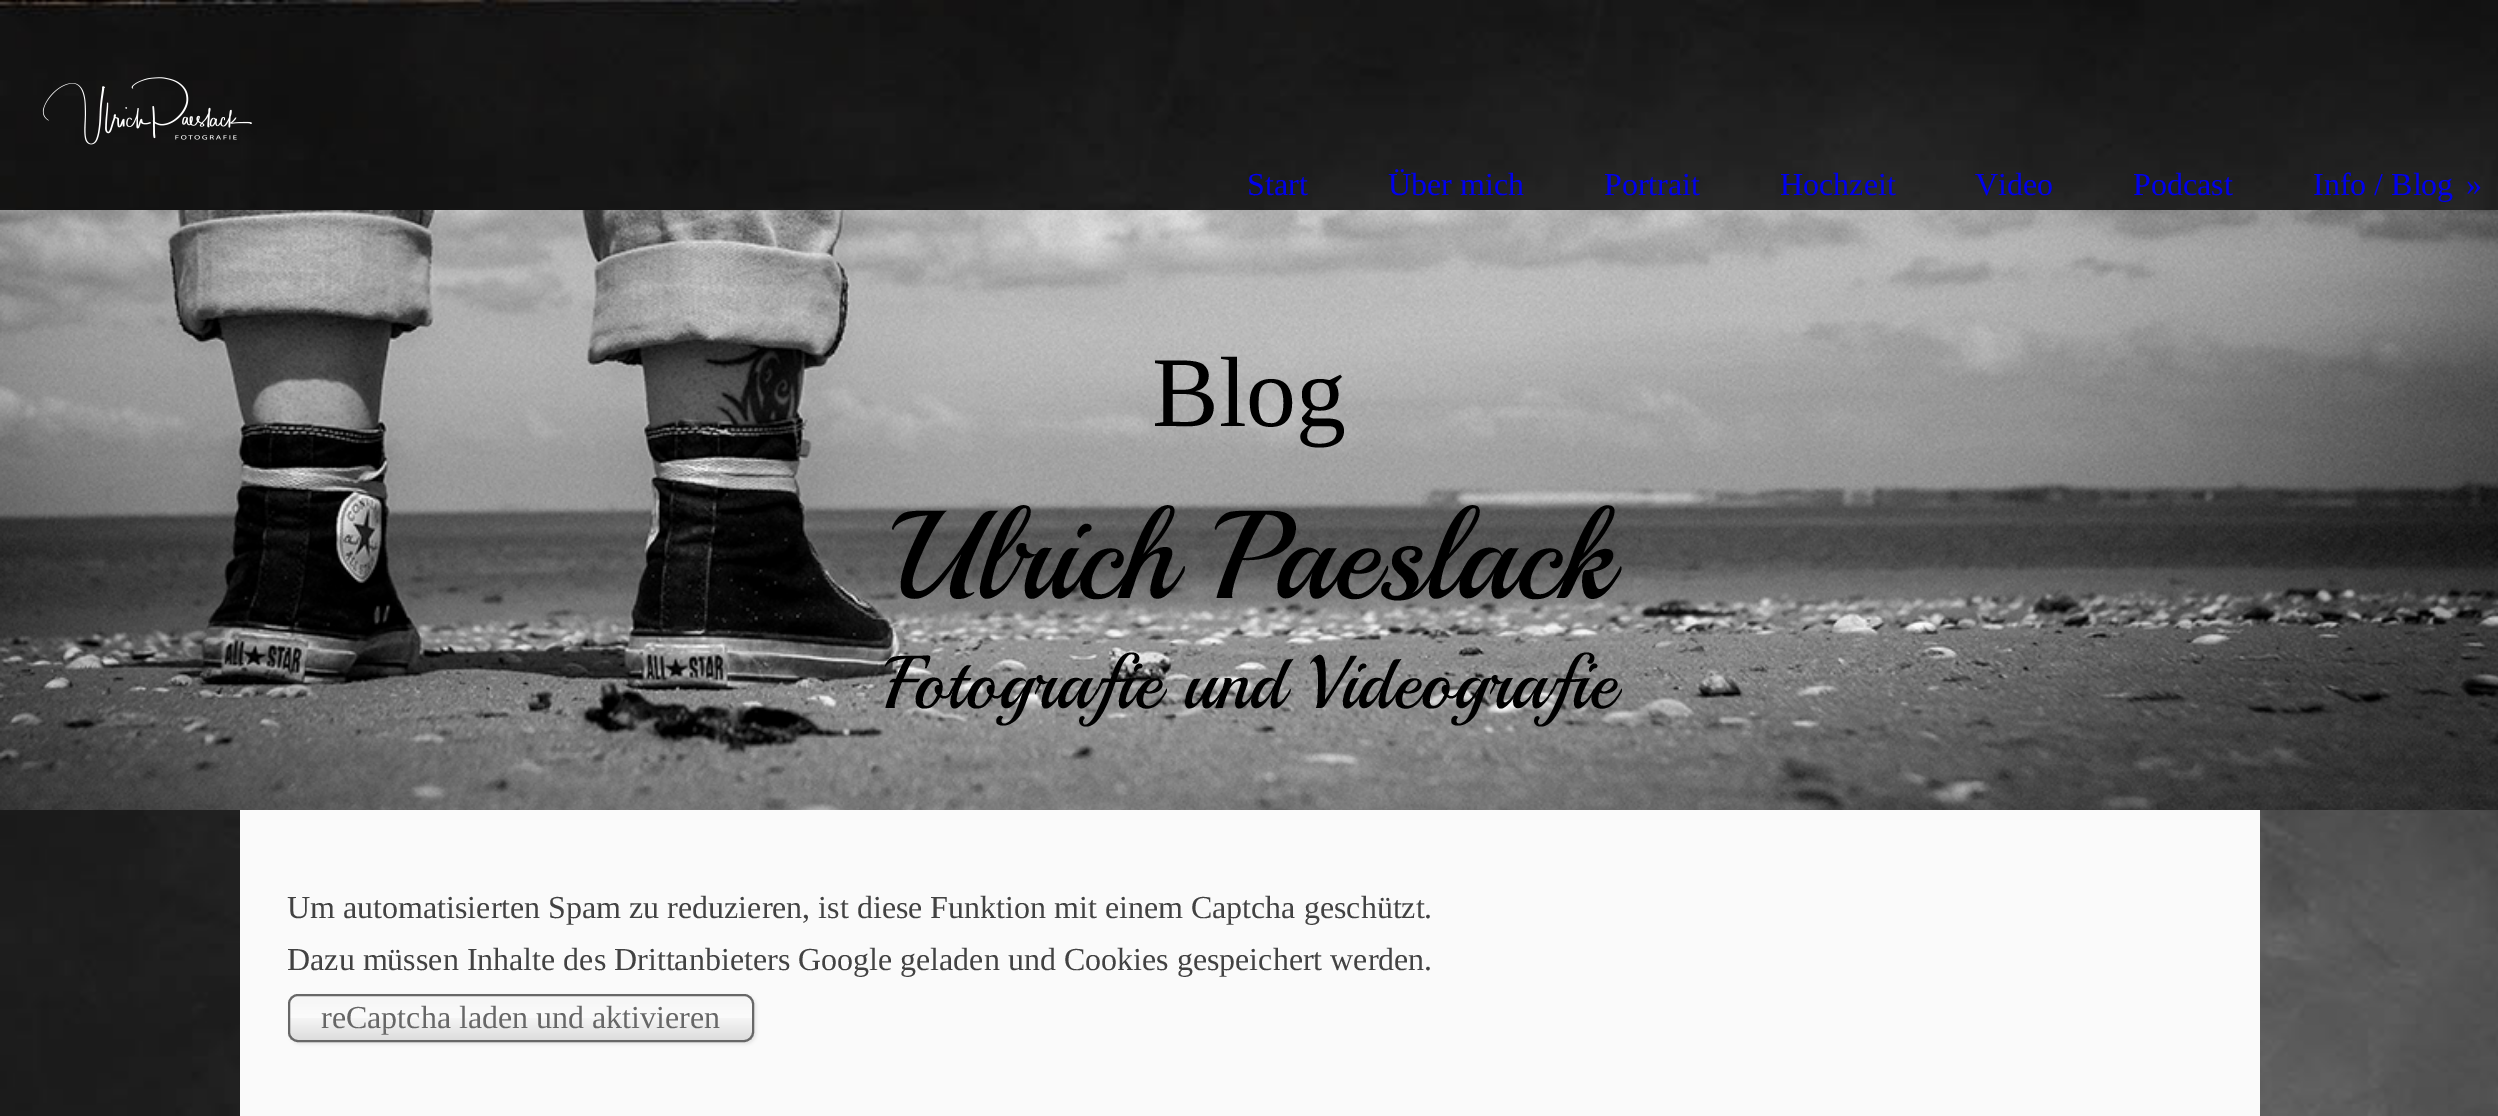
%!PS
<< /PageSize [2498 1116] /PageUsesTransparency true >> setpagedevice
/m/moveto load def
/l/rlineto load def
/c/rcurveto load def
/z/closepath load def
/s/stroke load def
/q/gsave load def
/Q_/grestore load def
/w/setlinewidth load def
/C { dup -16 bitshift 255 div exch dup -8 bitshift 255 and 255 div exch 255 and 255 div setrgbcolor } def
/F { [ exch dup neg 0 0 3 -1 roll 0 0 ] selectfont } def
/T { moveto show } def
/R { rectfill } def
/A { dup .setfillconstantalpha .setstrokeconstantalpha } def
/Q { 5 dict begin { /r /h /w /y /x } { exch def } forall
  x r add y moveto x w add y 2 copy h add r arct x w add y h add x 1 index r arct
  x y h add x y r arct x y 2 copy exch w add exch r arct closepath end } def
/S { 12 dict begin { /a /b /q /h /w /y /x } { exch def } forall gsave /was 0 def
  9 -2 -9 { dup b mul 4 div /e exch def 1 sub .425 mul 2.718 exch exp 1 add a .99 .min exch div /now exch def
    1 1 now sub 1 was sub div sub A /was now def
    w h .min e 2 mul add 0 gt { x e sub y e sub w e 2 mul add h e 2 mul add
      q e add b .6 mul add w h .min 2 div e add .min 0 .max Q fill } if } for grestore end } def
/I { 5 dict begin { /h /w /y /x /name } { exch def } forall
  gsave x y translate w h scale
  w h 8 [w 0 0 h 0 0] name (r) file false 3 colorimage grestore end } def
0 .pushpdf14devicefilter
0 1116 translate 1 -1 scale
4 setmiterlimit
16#FFFFFF C
0 0 2498 1116 R
(1.rgb) 0 0 2498 1116 I
(2.rgb) 42 77 210 68 I
/LiberationSerif-Regular 32 F
16#0000EE C
(Start) 1247 195 T
(Über mich) 1388 195 T
(Portrait) 1604 195 T
(Hochzeit) 1780 195 T
(Video) 1975 195 T
(Podcast) 2133 195 T
(Info / Blog) 2313 195 T
(») 2466 195 T
(3.rgb) 0 210 2498 600 I
/LiberationSerif-Regular 100 F
16#000000 C
(Blog) 1152 426 T
/Playball-Regular 125 F
(Ulrich Paeslack) 887 598 T
/Playball-Regular 75 F
(Fotografie und Videografie) 884 708 T
16#FAFAFA C
240 810 2020 306 R
/LiberationSerif-Regular 32 F
16#424242 C
(Um automatisierten Spam zu reduzieren, ist diese Funktion mit einem Captcha geschützt.) 287 918 T
(Dazu müssen Inhalte des Drittanbieters Google geladen und Cookies gespeichert werden.) 287 970 T
q
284 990 m 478 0 l 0 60 l -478 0 l z 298 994 m 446 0 l 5.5 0 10 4.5 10 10 c 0 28 l 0 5.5 -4.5 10 -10 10 c -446 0 l -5.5 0 -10 -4.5 -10 -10 c 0 -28 l 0 -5.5 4.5 -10 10 -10 c z eoclip newpath
16#323232 C
290 996 466 48 10 1.5 .1 S
Q_
q
288 994 466 48 10 Q clip newpath
0.15 A
q 288 996 m 466 0 l 0 44 l -466 0 l z clip newpath
<< /ShadingType 2 /ColorSpace /DeviceRGB /Coords [521 996 521 1040] /Extend [true true] /Function << /FunctionType 3 /Domain [0 1] /Functions [<< /FunctionType 2 /Domain [0 1] /C0 [.835 .835 .835] /C1 [.996 .996 .996] /N 1 >> << /FunctionType 2 /Domain [0 1] /C0 [.996 .996 .996] /C1 [.835 .835 .835] /N 1 >> << /FunctionType 2 /Domain [0 1] /C0 [.835 .835 .835] /C1 [.196 .196 .196] /N 1 >>] /Bounds [.5 .51] /Encode [0 1 0 1 0 1] >> >> shfill Q_
Q_
16#676767 C
2 w
289 995 464 46 9 Q s
(reCaptcha laden und aktivieren) 321 1028 T
.poppdf14devicefilter showpage
